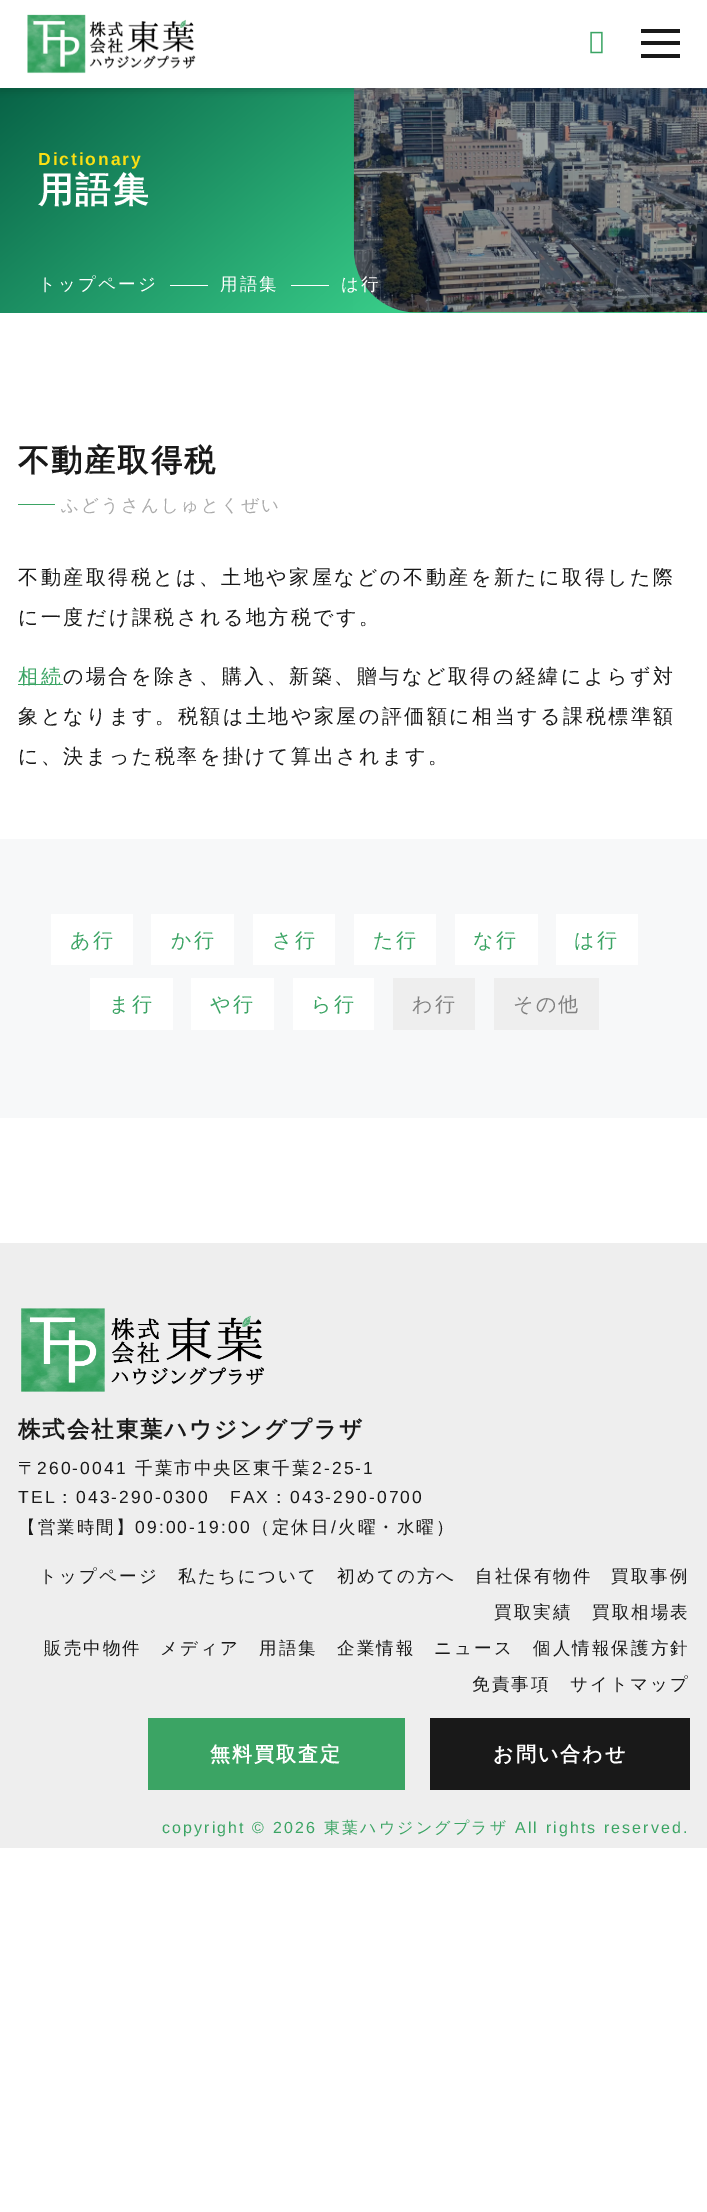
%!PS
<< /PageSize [707 2212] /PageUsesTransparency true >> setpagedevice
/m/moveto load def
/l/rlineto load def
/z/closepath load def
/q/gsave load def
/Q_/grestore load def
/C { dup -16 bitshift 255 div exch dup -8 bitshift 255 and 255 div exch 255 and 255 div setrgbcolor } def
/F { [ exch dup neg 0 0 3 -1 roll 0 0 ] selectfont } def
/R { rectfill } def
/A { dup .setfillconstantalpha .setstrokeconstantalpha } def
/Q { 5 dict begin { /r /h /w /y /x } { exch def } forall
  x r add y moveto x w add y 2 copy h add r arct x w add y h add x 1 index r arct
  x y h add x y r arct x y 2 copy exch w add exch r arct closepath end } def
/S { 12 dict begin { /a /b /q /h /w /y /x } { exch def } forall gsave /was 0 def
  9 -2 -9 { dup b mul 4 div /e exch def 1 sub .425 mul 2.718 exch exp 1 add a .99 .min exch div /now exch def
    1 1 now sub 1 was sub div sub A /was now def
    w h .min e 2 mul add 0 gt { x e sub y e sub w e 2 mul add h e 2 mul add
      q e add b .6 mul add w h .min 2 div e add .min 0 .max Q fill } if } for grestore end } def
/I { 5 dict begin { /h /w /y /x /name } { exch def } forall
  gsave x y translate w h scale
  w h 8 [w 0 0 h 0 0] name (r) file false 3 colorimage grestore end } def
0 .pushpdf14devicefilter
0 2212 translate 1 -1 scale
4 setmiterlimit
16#FFFFFF C
0 0 707 2212 R
q 0 88 m 707 0 l 0 225 l -707 0 l z clip newpath
<< /ShadingType 2 /ColorSpace /DeviceRGB /Coords [131 -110 577 422] /Extend [true true] /Function << /FunctionType 2 /Domain [0 1] /C0 [0 .322 .239] /C1 [.31 .996 .655] /N 1 >> >> shfill Q_
(3.rgb) 353 88 354 225 I
16#000000 C
0 4 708 87 0 4 .16 S
16#FFFFFF C
0 0 707 88 R
(1.rgb) 27 14 169 60 I
(2.rgb) 590 31 13 23 I
16#191919 C
641 29 39 4 R
641 41 39 4 R
641 54 39 4 R
/LiberationSans-Bold 17.5 F
16#FADF13 C
38 165 m 1.9 0 (Dictionary) ashow
/WenQuanYiZenHei-Bold 35.5 F
16#FFFFFF C
38 202 m 1.9 0 (用語集) ashow
/WenQuanYiZenHei-Medium 17.5 F
38 290 m 2.1 0 (トップページ) ashow
170 285 38 1 R
220 290 m 2.1 0 (用語集) ashow
291 285 38 1 R
341 290 m 2.1 0 (は行) ashow
/WenQuanYiZenHei-Bold 31.25 F
16#191919 C
18 471 m 1.9 0 (不動産取得税) ashow
16#3BA464 C
18 504 37 1 R
/WenQuanYiZenHei-Medium 17.5 F
16#AAAAAA C
61 511 m 2.1 0 (ふどうさんしゅとくぜい) ashow
/WenQuanYiZenHei-Medium 20 F
16#191919 C
18 584 m 2.5 0 (不動産取得税とは、土地や家屋などの不動産を新たに取得した際) ashow
18 624 m 2.5 0 (に一度だけ課税される地方税です。) ashow
16#3BA464 C
18 684 45 1 R
18 683 m 2.5 0 (相続) ashow
16#191919 C
63 683 m 2.5 0 (の場合を除き、購入、新築、贈与など取得の経緯によらず対) ashow
18 723 m 2.5 0 (象となります。税額は土地や家屋の評価額に相当する課税標準額) ashow
18 763 m 2.5 0 (に、決まった税率を掛けて算出されます。) ashow
16#F7F8F9 C
0 839 707 279 R
16#FFFFFF C
51 914 82 51 R
16#3BA464 C
70 947 m 2.1 0 (あ行) ashow
16#FFFFFF C
151 914 83 51 R
16#3BA464 C
171 947 m 2.1 0 (か行) ashow
16#FFFFFF C
253 914 82 51 R
16#3BA464 C
272 947 m 2.1 0 (さ行) ashow
16#FFFFFF C
354 914 82 51 R
16#3BA464 C
373 947 m 2.1 0 (た行) ashow
16#FFFFFF C
455 914 83 51 R
16#3BA464 C
473 947 m 2.1 0 (な行) ashow
16#FFFFFF C
556 914 82 51 R
16#3BA464 C
574 947 m 2.1 0 (は行) ashow
16#FFFFFF C
90 978 83 52 R
16#3BA464 C
109 1011 m 2.1 0 (ま行) ashow
16#FFFFFF C
191 978 83 52 R
16#3BA464 C
210 1011 m 2.1 0 (や行) ashow
16#FFFFFF C
293 978 81 52 R
16#3BA464 C
311 1011 m 2.1 0 (ら行) ashow
16#EEEEEE C
393 978 82 52 R
16#808080 C
412 1011 m 2.1 0 (わ行) ashow
16#EEEEEE C
494 978 105 52 R
16#808080 C
513 1011 m 2.1 0 (その他) ashow
16#EEEEEE C
0 1243 707 605 R
(4.rgb) 21 1308 243 84 I
/WenQuanYiZenHei-Bold 22.5 F
16#191919 C
18 1437 m 1.9 0 (株式会社東葉ハウジングプラザ) ashow
/WenQuanYiZenHei-Medium 17.5 F
18 1474 m 2.1 0 (〒) ashow
/LiberationSans-Regular 17.5 F
37 1474 m 2.1 0 (260-0041) ashow
/WenQuanYiZenHei-Medium 17.5 F
135 1474 m 2.1 0 (千葉市中央区東千葉) ashow
/LiberationSans-Regular 17.5 F
312 1474 m 2.1 0 (2-25-1) ashow
18 1503 m 2.1 0 (TEL) ashow
/WenQuanYiZenHei-Medium 17.5 F
56 1503 m 2.1 0 (：) ashow
/LiberationSans-Regular 17.5 F
76 1503 m 2.1 0 (043-290-0300 FAX) ashow
/WenQuanYiZenHei-Medium 17.5 F
270 1503 m 2.1 0 (：) ashow
/LiberationSans-Regular 17.5 F
290 1503 m 2.1 0 (043-290-0700) ashow
/WenQuanYiZenHei-Medium 17.5 F
18 1533 m 2.1 0 (【営業時間】) ashow
/LiberationSans-Regular 17.5 F
135 1533 m 2.1 0 (09:00-19:00) ashow
/WenQuanYiZenHei-Medium 17.5 F
252 1533 m 2.1 0 (（定休日) ashow
/LiberationSans-Regular 17.5 F
331 1533 m 2.1 0 (/) ashow
/WenQuanYiZenHei-Medium 17.5 F
338 1533 m 2.1 0 (火曜・水曜）) ashow
39 1582 m 2.1 0 (トップページ) ashow
178 1582 m 2.1 0 (私たちについて) ashow
337 1582 m 2.1 0 (初めての方へ) ashow
475 1582 m 2.1 0 (自社保有物件) ashow
611 1582 m 2.1 0 (買取事例) ashow
494 1618 m 2.1 0 (買取実績) ashow
592 1618 m 2.1 0 (買取相場表) ashow
44 1654 m 2.1 0 (販売中物件) ashow
160 1654 m 2.1 0 (メディア) ashow
259 1654 m 2.1 0 (用語集) ashow
337 1654 m 2.1 0 (企業情報) ashow
434 1654 m 2.1 0 (ニュース) ashow
533 1654 m 2.1 0 (個人情報保護方針) ashow
472 1690 m 2.1 0 (免責事項) ashow
570 1690 m 2.1 0 (サイトマップ) ashow
16#3BA464 C
148 1718 257 72 R
/WenQuanYiZenHei-Bold 20 F
16#FFFFFF C
210 1761 m 2.1 0 (無料買取査定) ashow
16#191919 C
430 1718 260 72 R
16#FFFFFF C
493 1761 m 2.1 0 (お問い合わせ) ashow
/LiberationSans-Regular 16 F
16#3BA464 C
162 1833 m 2.1 0 (copyright © 2026) ashow
/WenQuanYiZenHei-Medium 16 F
324 1833 m 2.1 0 (東葉ハウジングプラザ) ashow
/LiberationSans-Regular 16 F
515 1833 m 2.1 0 (All rights reserved.) ashow
.poppdf14devicefilter showpage
